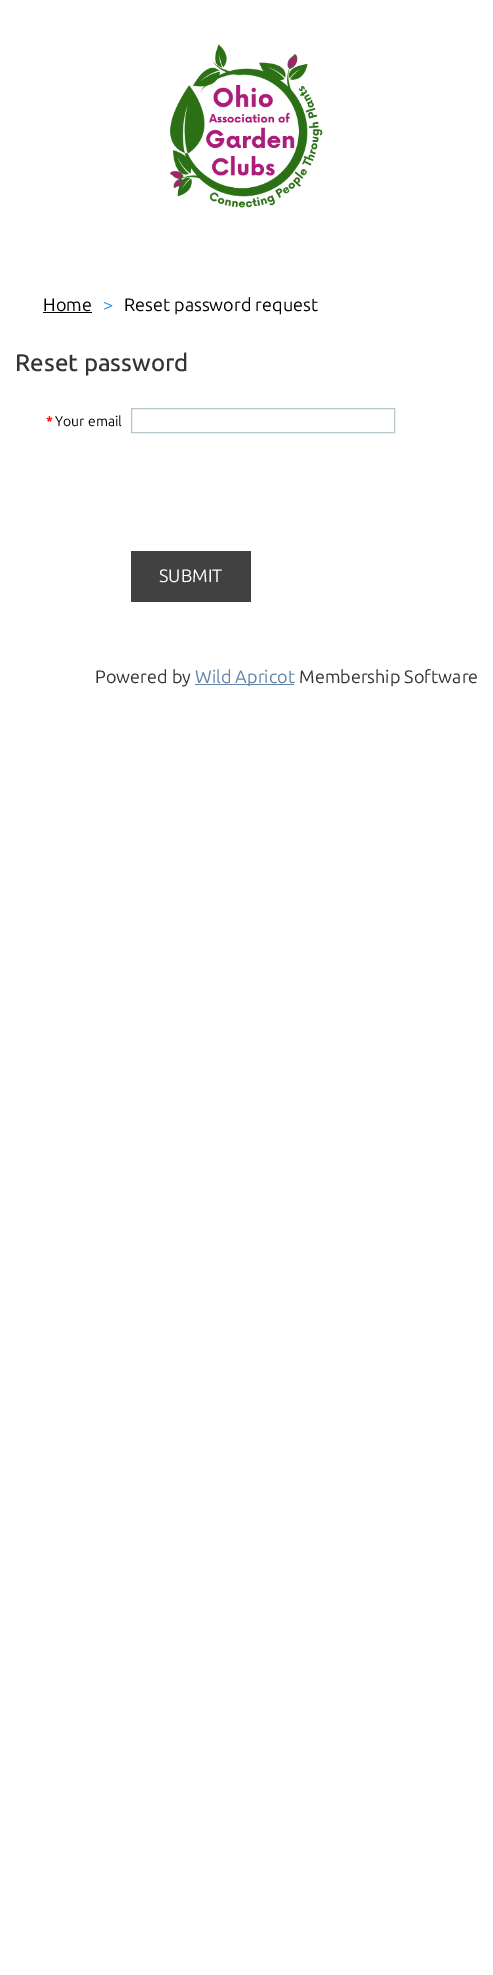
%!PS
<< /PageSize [493 1975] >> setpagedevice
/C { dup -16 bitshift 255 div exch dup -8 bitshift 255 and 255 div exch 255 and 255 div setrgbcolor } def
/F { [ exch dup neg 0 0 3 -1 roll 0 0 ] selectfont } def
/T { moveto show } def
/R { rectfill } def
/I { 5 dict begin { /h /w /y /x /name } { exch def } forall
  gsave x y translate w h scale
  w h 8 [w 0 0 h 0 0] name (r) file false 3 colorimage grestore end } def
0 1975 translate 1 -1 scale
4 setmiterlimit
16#FFFFFF C
0 0 493 1975 R
(1.rgb) 169 44 154 164 I
/Ubuntu-Regular 18 F
16#000000 C
(Home) 43 311 T
43 312 49 1 R
16#3498DB C
(>) 103 311 T
16#000000 C
(Reset password request) 124 311 T
/Ubuntu-Medium 24 F
16#333333 C
(Reset password) 15 371 T
/Ubuntu-Bold 14 F
16#FF0000 C
(*) 46 426 T
/Ubuntu-Regular 14 F
16#000000 C
(Your email) 55 426 T
16#B8C6CD C
131.5 408.5 263 24 rectstroke
16#414141 C
131 551 120 51 R
/Ubuntu-Regular 18 F
16#FFFFFF C
(SUBMIT) 159 582 T
16#333333 C
(Powered by) 95 683 T
16#5F82A7 C
195 684 99 1 R
(Wild Apricot) 195 683 T
16#333333 C
(Membership Software) 299 683 T
showpage
